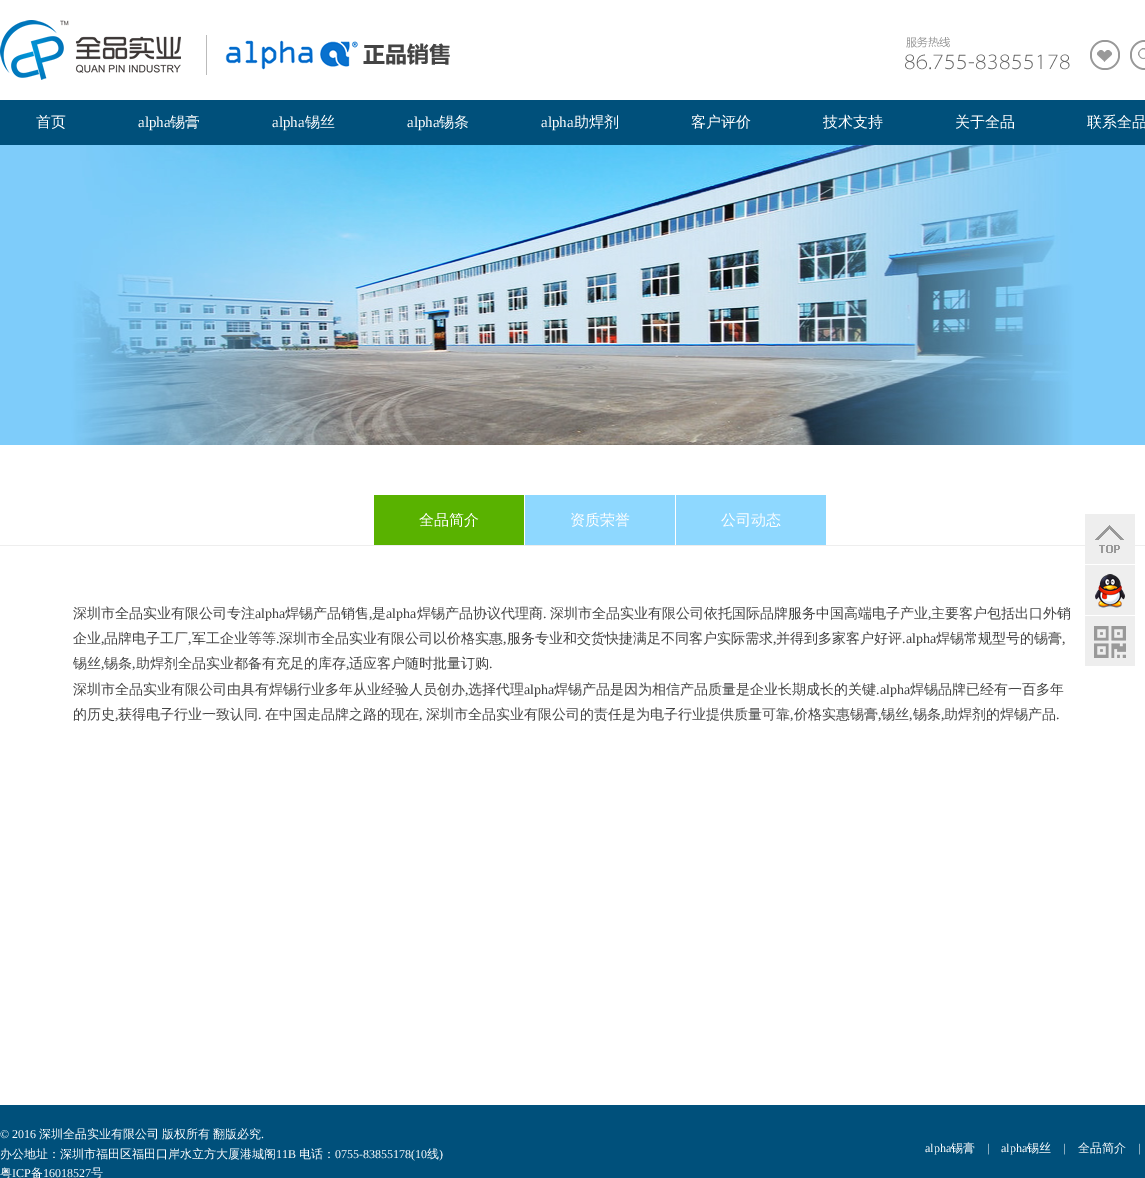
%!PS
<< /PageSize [1145 1178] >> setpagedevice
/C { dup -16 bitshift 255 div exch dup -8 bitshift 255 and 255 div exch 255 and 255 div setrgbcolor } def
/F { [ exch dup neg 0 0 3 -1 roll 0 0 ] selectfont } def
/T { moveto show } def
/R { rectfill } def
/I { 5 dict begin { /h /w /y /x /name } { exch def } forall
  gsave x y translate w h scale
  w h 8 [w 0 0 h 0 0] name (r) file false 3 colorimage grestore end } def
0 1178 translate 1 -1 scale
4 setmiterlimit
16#FFFFFF C
0 0 1145 1178 R
(1.rgb) 0 20 450 60 I
(2.rgb) 905 36 165 34 I
(3.rgb) 1090 40 30 30 I
(4.rgb) 1130 40 15 30 I
16#00507B C
0 100 1145 45 R
/WenQuanYiZenHei-Medium 15 F
16#FFFFFF C
(首页) 36 127 T
/LiberationSerif-Regular 15 F
(alpha) 138 127 T
/WenQuanYiZenHei-Medium 15 F
(锡膏) 170 127 T
/LiberationSerif-Regular 15 F
(alpha) 272 127 T
/WenQuanYiZenHei-Medium 15 F
(锡丝) 305 127 T
/LiberationSerif-Regular 15 F
(alpha) 407 127 T
/WenQuanYiZenHei-Medium 15 F
(锡条) 439 127 T
/LiberationSerif-Regular 15 F
(alpha) 541 127 T
/WenQuanYiZenHei-Medium 15 F
(助焊剂) 574 127 T
(客户评价) 691 127 T
(技术支持) 823 127 T
(关于全品) 955 127 T
(联系全品) 1087 127 T
(5.rgb) 0 145 1145 300 I
16#EEEEEE C
0 545 1145 1 R
16#59B200 C
374 495 150 50 R
16#FFFFFF C
(全品简介) 419 525 T
16#8ED8FF C
525 495 150 50 R
16#FFFFFF C
(资质荣誉) 570 525 T
16#8ED8FF C
676 495 150 50 R
16#FFFFFF C
(公司动态) 721 525 T
16#EEEEEE C
1085 514 50 50 R
(6.rgb) 1095 525 29 28 I
1085 565 50 50 R
(7.rgb) 1095 574 30 34 I
1085 616 50 50 R
(8.rgb) 1094 626 32 32 I
/WenQuanYiZenHei-Medium 14 F
16#444444 C
(深圳市全品实业有限公司专注) 73 618 T
/LiberationSerif-Regular 14 F
(alpha) 255 618 T
/WenQuanYiZenHei-Medium 14 F
(焊锡产品销售) 285 618 T
/LiberationSerif-Regular 14 F
(,) 369 618 T
/WenQuanYiZenHei-Medium 14 F
(是) 372 618 T
/LiberationSerif-Regular 14 F
(alpha) 386 618 T
/WenQuanYiZenHei-Medium 14 F
(焊锡产品协议代理商) 417 618 T
/LiberationSerif-Regular 14 F
(.) 543 618 T
/WenQuanYiZenHei-Medium 14 F
(深圳市全品实业有限公司依托国际品牌服务中国高端电子产业) 550 618 T
/LiberationSerif-Regular 14 F
(,) 928 618 T
/WenQuanYiZenHei-Medium 14 F
(主要客户包括出口外销) 931 618 T
(企业) 73 643 T
/LiberationSerif-Regular 14 F
(,) 101 643 T
/WenQuanYiZenHei-Medium 14 F
(品牌电子工厂) 104 643 T
/LiberationSerif-Regular 14 F
(,) 188 643 T
/WenQuanYiZenHei-Medium 14 F
(军工企业等等) 192 643 T
/LiberationSerif-Regular 14 F
(.) 276 643 T
/WenQuanYiZenHei-Medium 14 F
(深圳市全品实业有限公司以价格实惠) 279 643 T
/LiberationSerif-Regular 14 F
(,) 503 643 T
/WenQuanYiZenHei-Medium 14 F
(服务专业和交货快捷满足不同客户实际需求) 507 643 T
/LiberationSerif-Regular 14 F
(,) 773 643 T
/WenQuanYiZenHei-Medium 14 F
(并得到多家客户好评) 776 643 T
/LiberationSerif-Regular 14 F
(.alpha) 902 643 T
/WenQuanYiZenHei-Medium 14 F
(焊锡常规型号的锡膏) 936 643 T
/LiberationSerif-Regular 14 F
(,) 1062 643 T
/WenQuanYiZenHei-Medium 14 F
(锡丝) 73 668 T
/LiberationSerif-Regular 14 F
(,) 101 668 T
/WenQuanYiZenHei-Medium 14 F
(锡条) 104 668 T
/LiberationSerif-Regular 14 F
(,) 132 668 T
/WenQuanYiZenHei-Medium 14 F
(助焊剂全品实业都备有充足的库存) 136 668 T
/LiberationSerif-Regular 14 F
(,) 346 668 T
/WenQuanYiZenHei-Medium 14 F
(适应客户随时批量订购) 349 668 T
/LiberationSerif-Regular 14 F
(.) 489 668 T
/WenQuanYiZenHei-Medium 14 F
(深圳市全品实业有限公司由具有焊锡行业多年从业经验人员创办) 73 694 T
/LiberationSerif-Regular 14 F
(,) 465 694 T
/WenQuanYiZenHei-Medium 14 F
(选择代理) 468 694 T
/LiberationSerif-Regular 14 F
(alpha) 524 694 T
/WenQuanYiZenHei-Medium 14 F
(焊锡产品是因为相信产品质量是企业长期成长的关键) 554 694 T
/LiberationSerif-Regular 14 F
(.alpha) 876 694 T
/WenQuanYiZenHei-Medium 14 F
(焊锡品牌已经有一百多年) 910 694 T
(的历史) 73 719 T
/LiberationSerif-Regular 14 F
(,) 115 719 T
/WenQuanYiZenHei-Medium 14 F
(获得电子行业一致认同) 118 719 T
/LiberationSerif-Regular 14 F
(.) 258 719 T
/WenQuanYiZenHei-Medium 14 F
(在中国走品牌之路的现在) 265 719 T
/LiberationSerif-Regular 14 F
(,) 419 719 T
/WenQuanYiZenHei-Medium 14 F
(深圳市全品实业有限公司的责任是为电子行业提供质量可靠) 426 719 T
/LiberationSerif-Regular 14 F
(,) 790 719 T
/WenQuanYiZenHei-Medium 14 F
(价格实惠锡膏) 794 719 T
/LiberationSerif-Regular 14 F
(,) 878 719 T
/WenQuanYiZenHei-Medium 14 F
(锡丝) 881 719 T
/LiberationSerif-Regular 14 F
(,) 909 719 T
/WenQuanYiZenHei-Medium 14 F
(锡条) 913 719 T
/LiberationSerif-Regular 14 F
(,) 941 719 T
/WenQuanYiZenHei-Medium 14 F
(助焊剂的焊锡产品) 944 719 T
/LiberationSerif-Regular 14 F
(.) 1056 719 T
16#00507B C
0 1105 1145 73 R
/LiberationSerif-Regular 12 F
16#FFFFFF C
(© 2016) 0 1138 T
/WenQuanYiZenHei-Medium 12 F
(深圳全品实业有限公司) 39 1138 T
(版权所有) 162 1138 T
(翻版必究) 213 1138 T
/LiberationSerif-Regular 12 F
(.) 261 1138 T
/WenQuanYiZenHei-Medium 12 F
(办公地址：深圳市福田区福田口岸水立方大厦港城阁) 0 1158 T
/LiberationSerif-Regular 12 F
(11B) 276 1158 T
/WenQuanYiZenHei-Medium 12 F
(电话：) 299 1158 T
/LiberationSerif-Regular 12 F
(0755-83855178\(10) 335 1158 T
/WenQuanYiZenHei-Medium 12 F
(线) 427 1158 T
/LiberationSerif-Regular 12 F
(\)) 439 1158 T
/WenQuanYiZenHei-Medium 12 F
(粤) 0 1177 T
/LiberationSerif-Regular 12 F
(ICP) 12 1177 T
/WenQuanYiZenHei-Medium 12 F
(备) 31 1177 T
/LiberationSerif-Regular 12 F
(16018527) 43 1177 T
/WenQuanYiZenHei-Medium 12 F
(号) 91 1177 T
/LiberationSerif-Regular 12 F
(alpha) 925 1152 T
/WenQuanYiZenHei-Medium 12 F
(锡膏) 951 1152 T
/LiberationSerif-Regular 12 F
(|) 987 1152 T
(alpha) 1001 1152 T
/WenQuanYiZenHei-Medium 12 F
(锡丝) 1027 1152 T
/LiberationSerif-Regular 12 F
(|) 1063 1152 T
/WenQuanYiZenHei-Medium 12 F
(全品简介) 1078 1152 T
/LiberationSerif-Regular 12 F
(|) 1138 1152 T
showpage
